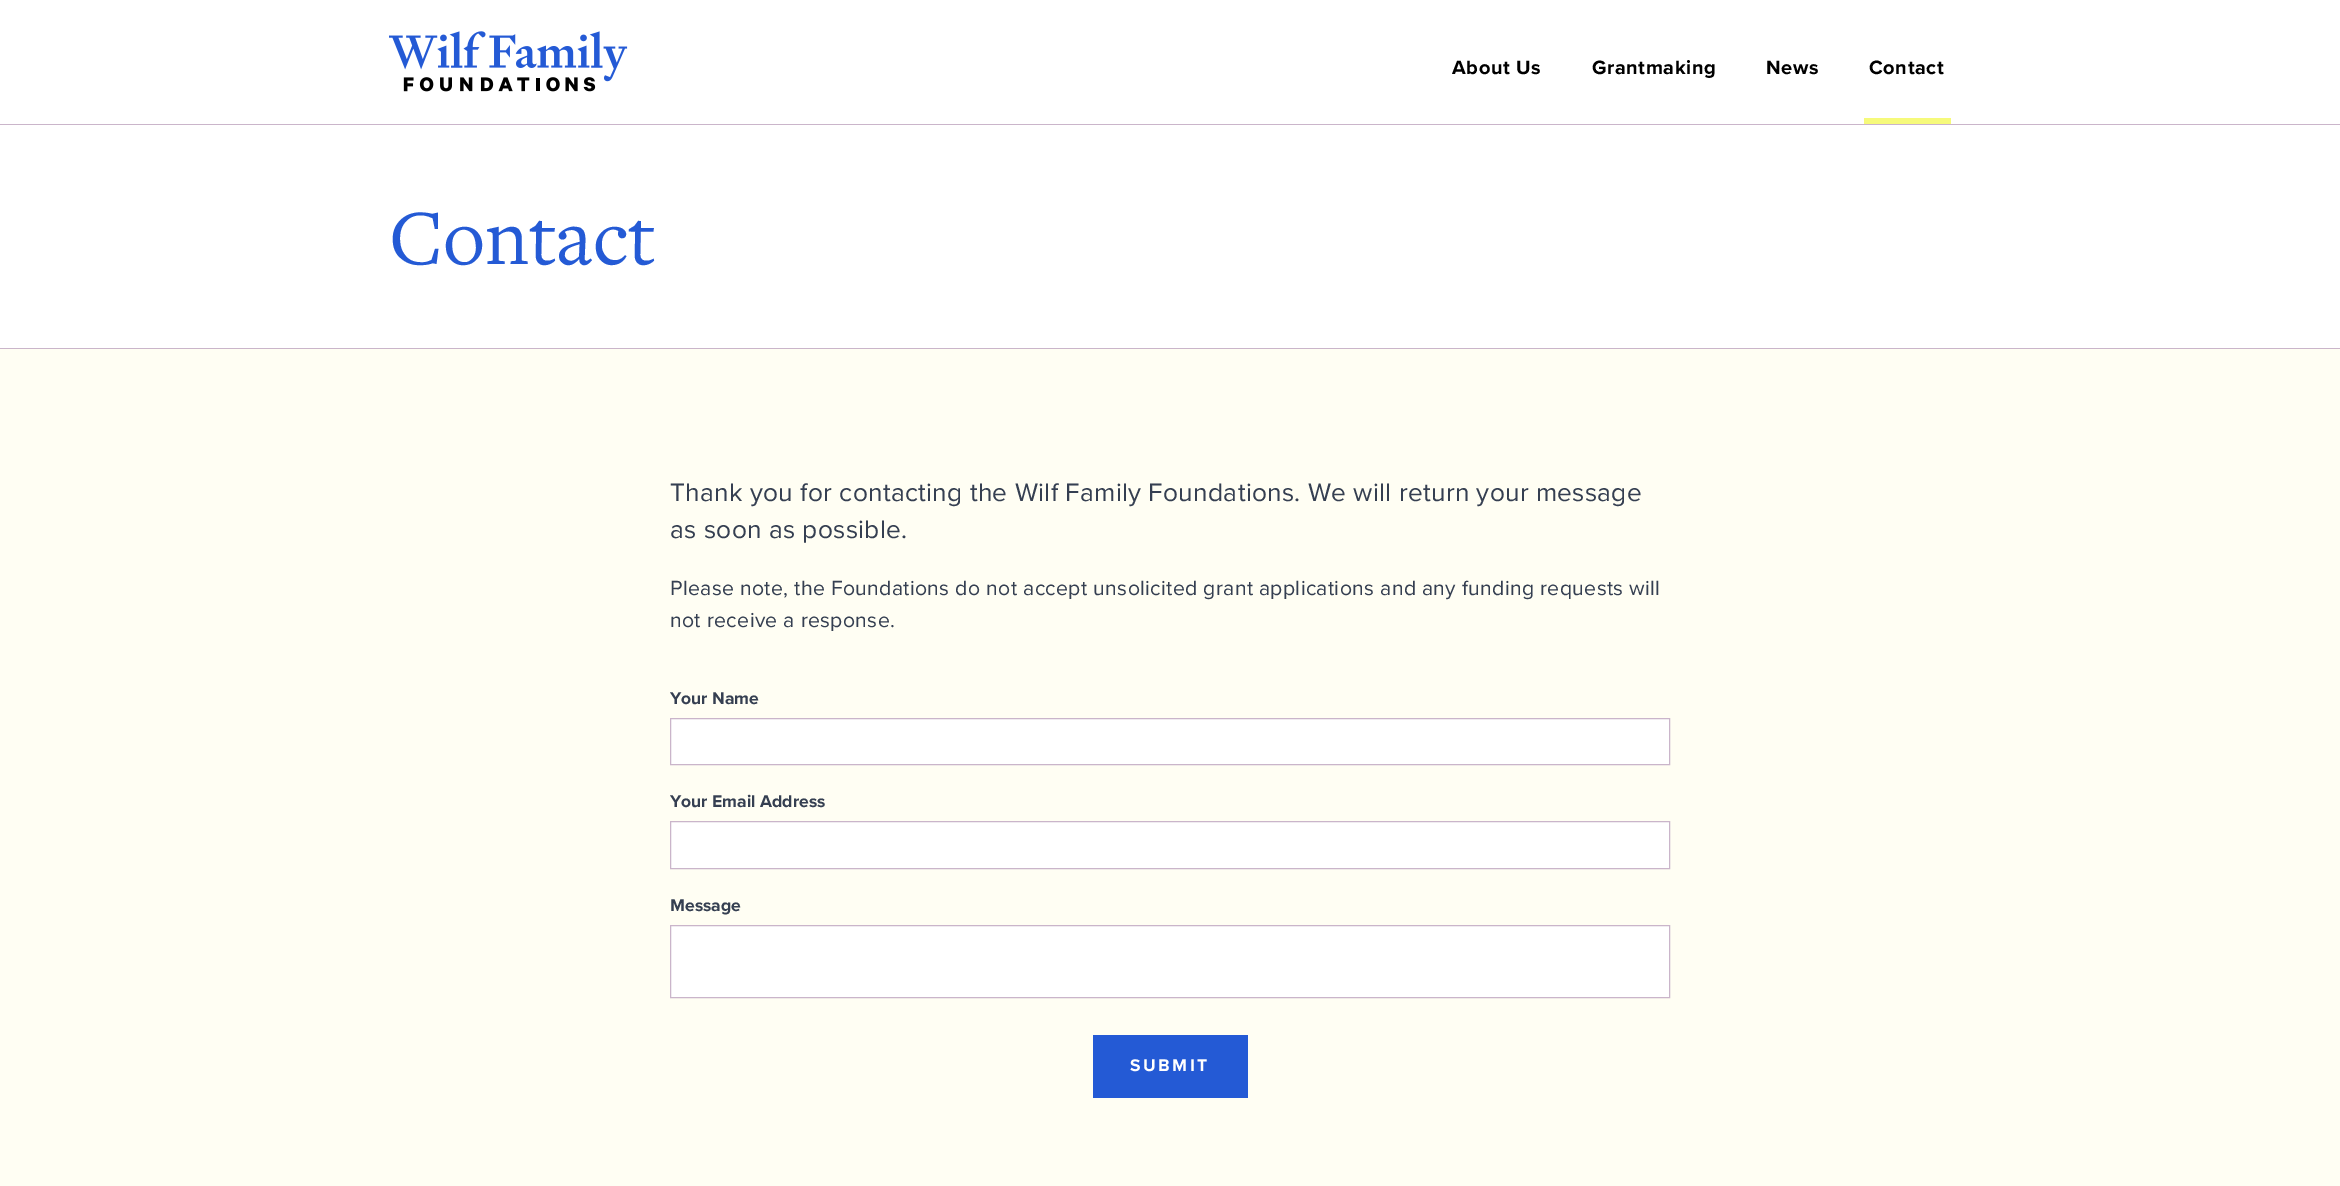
%!PS
<< /PageSize [2340 1186] >> setpagedevice
/m/moveto load def
/l/rlineto load def
/z/closepath load def
/f/fill load def
/s/stroke load def
/q/gsave load def
/Q_/grestore load def
/C { dup -16 bitshift 255 div exch dup -8 bitshift 255 and 255 div exch 255 and 255 div setrgbcolor } def
/F { [ exch dup neg 0 0 3 -1 roll 0 0 ] selectfont } def
/T { moveto show } def
/R { rectfill } def
/I { 5 dict begin { /h /w /y /x /name } { exch def } forall
  gsave x y translate w h scale
  w h 8 [w 0 0 h 0 0] name (r) file false 3 colorimage grestore end } def
0 1186 translate 1 -1 scale
4 setmiterlimit
16#FFFFFF C
0 0 2340 1186 R
16#CAB5CA C
0 124 2340 1 R
(1.rgb) 389 31 239 61 I
/ProximaNova-Bold 20 F
16#000000 C
1452 74 m .6 0 (About Us) ashow
1592 74 m .6 0 (Grantmaking) ashow
1766 74 m .6 0 (News) ashow
16#F6FA7B C
1864 118 87 6 R
16#000000 C
1869 74 m .6 0 (Contact) ashow
16#CAB5CA C
0 348 2340 1 R
/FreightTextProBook-Regular 81 F
16#245AD5 C
(Contact) 389 264 T
16#FFFEF3 C
0 349 2340 837 R
/ProximaNova-Regular 26.25 F
16#353F51 C
670 501 m .31 0 (Thank you for contacting the Wilf Family Foundations. We will return your message) ashow
670 538 m .31 0 (as soon as possible.) ashow
/ProximaNova-Regular 21.25 F
670 595 m .31 0 (Please note, the Foundations do not accept unsolicited grant applications and any funding requests will) ashow
670 627 m .31 0 (not receive a response.) ashow
/ProximaNova-Bold 17.5 F
(Your Name) 670 704 T
16#FFFFFF C
670.5 718.5 m 999 0 l 0 46 l -999 0 l z q f Q_
16#CAB5CA C
s
16#353F51 C
(Your Email Address) 670 807 T
16#FFFFFF C
670.5 821.5 m 999 0 l 0 47 l -999 0 l z q f Q_
16#CAB5CA C
s
16#353F51 C
(Message) 670 911 T
16#FFFFFF C
670.5 925.5 m 999 0 l 0 72 l -999 0 l z q f Q_
16#CAB5CA C
s
16#245AD5 C
1093 1035 155 63 R
16#FFFFFF C
1130 1071 m 2.5 0 (SUBMIT) ashow
showpage
